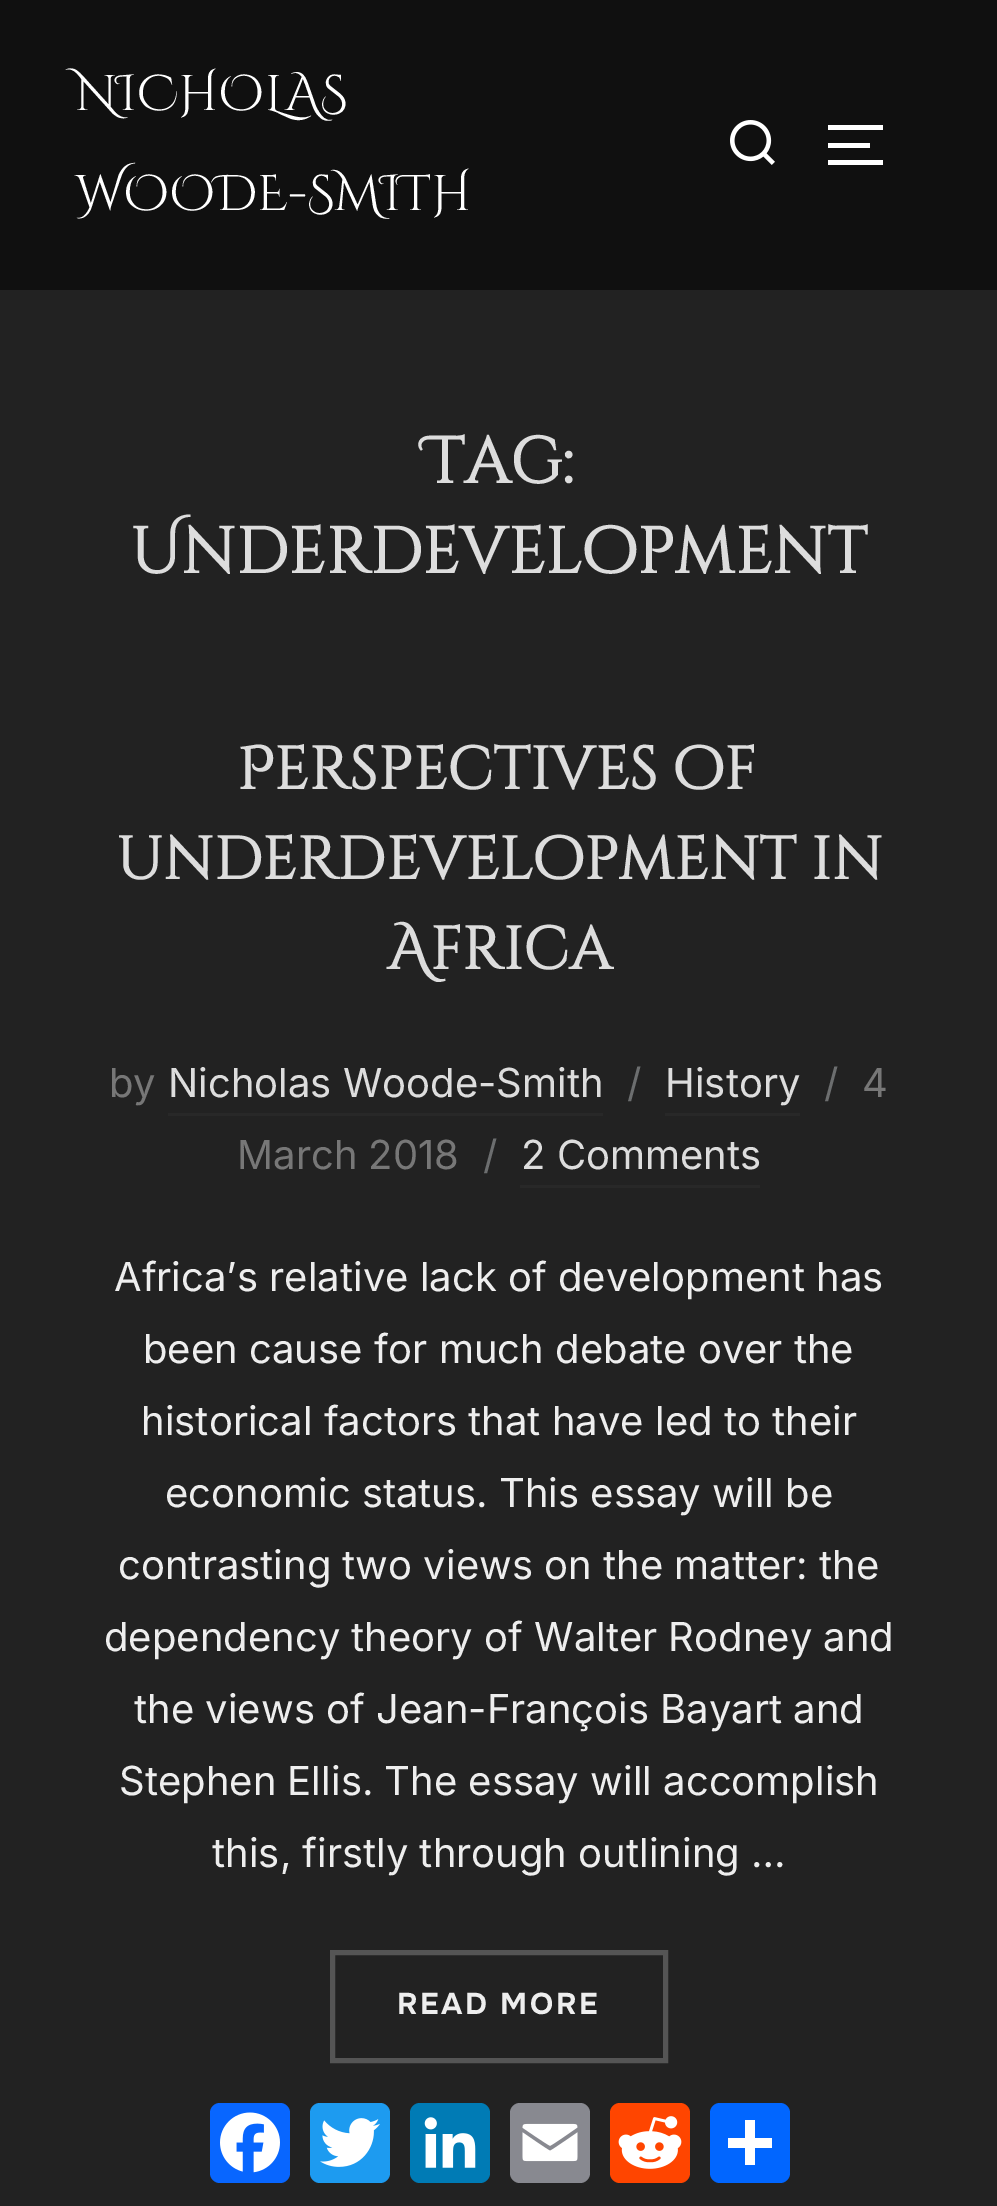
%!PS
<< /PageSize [997 2206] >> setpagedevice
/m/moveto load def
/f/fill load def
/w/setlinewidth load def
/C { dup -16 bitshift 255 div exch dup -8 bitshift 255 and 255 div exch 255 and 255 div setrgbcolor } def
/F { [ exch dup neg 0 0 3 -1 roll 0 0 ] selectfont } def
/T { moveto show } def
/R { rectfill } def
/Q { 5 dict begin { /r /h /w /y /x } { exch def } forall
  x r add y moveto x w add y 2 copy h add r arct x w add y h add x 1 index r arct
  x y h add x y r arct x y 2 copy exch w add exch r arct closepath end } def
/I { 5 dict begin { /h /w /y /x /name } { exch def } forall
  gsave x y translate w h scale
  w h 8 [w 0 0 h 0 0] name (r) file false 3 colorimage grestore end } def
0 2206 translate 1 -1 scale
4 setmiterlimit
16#222222 C
0 0 997 2206 R
16#101010 C
0 0 997 290 R
/CinzelDecorative-Regular 50 F
16#FFFFFF C
(NICHOLAS) 75 110 T
(WOODE-SMITH) 75 210 T
(1.rgb) 730 120 45 45 I
828 125 55 5 R
828 143 42 5 R
828 160 55 5 R
/CinzelDecorative-Bold 65 F
16#DDDDDD C
(Tag:) 424 483 T
(Underdevelopment) 130 573 T
/CinzelDecorative-Bold 60 F
(Perspectives of) 237 789 T
(underdevelopment in) 116 879 T
(Africa) 387 969 T
/Inter-Regular 40 F
16#777777 C
(by) 109 1097 T
16#DDDDDD C
(Nicholas Woode-Smith) 168 1097 T
16#282828 C
168 1113 435 3 R
16#6C6E6F C
(/) 627 1097 T
16#DDDDDD C
(History) 665 1097 T
16#282828 C
665 1113 135 3 R
16#6C6E6F C
(/) 824 1097 T
16#777777 C
(4) 862 1097 T
(March 2018) 237 1169 T
16#6C6E6F C
(/) 483 1169 T
16#DDDDDD C
(2 Comments) 521 1169 T
16#282828 C
520 1185 240 3 R
16#EEEEEE C
(Africa’s relative lack of development has) 114 1291 T
(been cause for much debate over the) 143 1363 T
(historical factors that have led to their) 141 1435 T
(economic status. This essay will be) 165 1507 T
(contrasting two views on the matter: the) 118 1579 T
(dependency theory of Walter Rodney and) 104 1651 T
(the views of Jean-François Bayart and) 134 1723 T
(Stephen Ellis. The essay will accomplish) 119 1795 T
(this, firstly through outlining …) 212 1867 T
16#555555 C
5 w
332.5 1952.5 333 108 rectstroke
/Onest-Bold 30 F
16#EEEEEE C
397 2014 m 2.5 0 (READ MORE) ashow
16#0866FF C
210 2103 80 80 10 Q f
(2.rgb) 220 2112 60 61 I
16#1D9BF0 C
310 2103 80 80 10 Q f
(3.rgb) 320 2118 60 49 I
16#007BB5 C
410 2103 80 80 10 Q f
(4.rgb) 424 2117 52 51 I
16#888990 C
510 2103 80 80 10 Q f
(5.rgb) 522 2123 56 39 I
16#FF4500 C
610 2103 80 80 10 Q f
(6.rgb) 618 2116 64 53 I
16#0166FF C
710 2103 80 80 10 Q f
16#FFFFFF C
745 2120 10 45 R
728 2138 44 10 R
showpage
